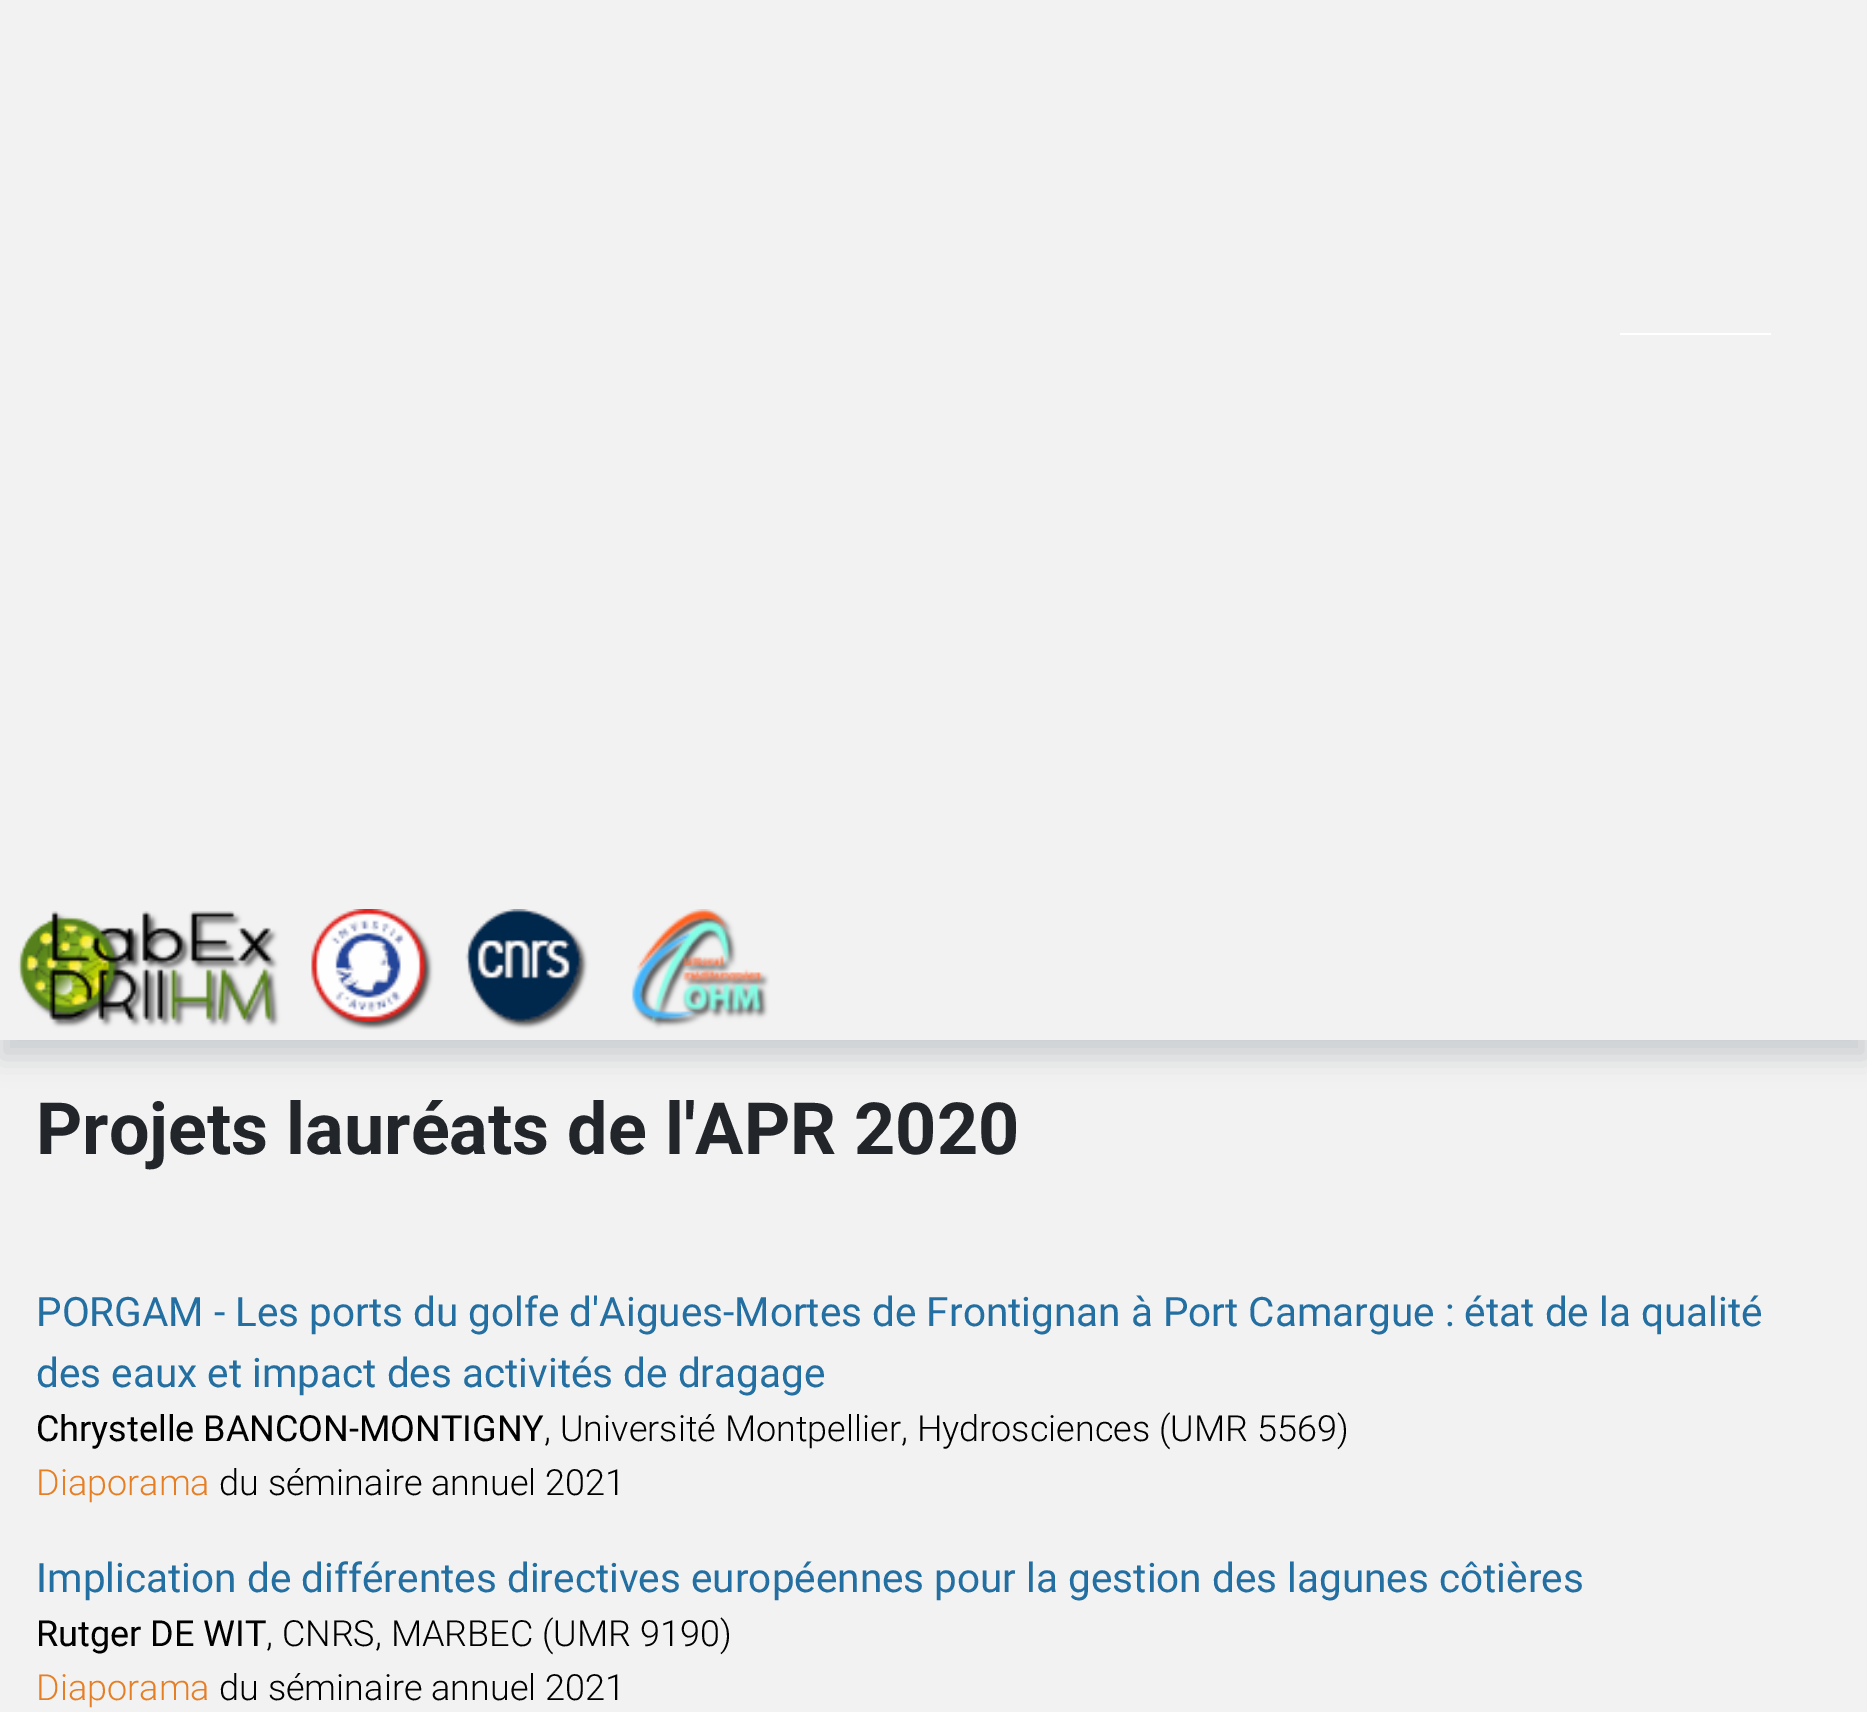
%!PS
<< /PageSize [1867 1712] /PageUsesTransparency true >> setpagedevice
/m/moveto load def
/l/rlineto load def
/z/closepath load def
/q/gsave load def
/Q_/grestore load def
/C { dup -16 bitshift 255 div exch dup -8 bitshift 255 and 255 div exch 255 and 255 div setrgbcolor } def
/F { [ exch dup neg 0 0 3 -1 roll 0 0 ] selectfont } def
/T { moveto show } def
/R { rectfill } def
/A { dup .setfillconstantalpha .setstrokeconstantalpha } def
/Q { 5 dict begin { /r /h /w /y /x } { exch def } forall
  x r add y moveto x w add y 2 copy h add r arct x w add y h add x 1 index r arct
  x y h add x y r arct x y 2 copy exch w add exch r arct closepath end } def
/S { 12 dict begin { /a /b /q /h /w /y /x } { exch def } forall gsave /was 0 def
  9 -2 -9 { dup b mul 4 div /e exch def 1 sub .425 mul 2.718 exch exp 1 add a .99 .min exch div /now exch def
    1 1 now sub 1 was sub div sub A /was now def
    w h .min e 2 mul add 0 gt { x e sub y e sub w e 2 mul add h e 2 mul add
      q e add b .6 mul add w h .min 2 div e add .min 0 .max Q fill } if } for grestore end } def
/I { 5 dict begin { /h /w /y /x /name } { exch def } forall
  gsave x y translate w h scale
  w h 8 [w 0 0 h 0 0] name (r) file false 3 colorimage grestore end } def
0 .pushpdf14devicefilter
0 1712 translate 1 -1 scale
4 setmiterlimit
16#F2F2F2 C
0 0 1867 1712 R
q
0 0 m 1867 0 l 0 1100 l -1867 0 l z 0 -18 m 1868 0 l 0 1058 l -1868 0 l z eoclip newpath
16#959DA5 C
0 0 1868 1058 0 13.5 .4 S
Q_
16#FFFFFF C
1620 333 151 2 R
(1.rgb) 18 909 752 121 I
/Roboto-Bold 72 F
16#22262A C
(Projets lauréats de l'APR 2020) 36 1154 T
/Roboto-Regular 40.5 F
16#236FA1 C
(PORGAM - Les ports du golfe d'Aigues-Mortes de Frontignan à Port Camargue : état de la qualité) 36 1326 T
(des eaux et impact des activités de dragage) 36 1387 T
/Roboto-Regular 36 F
16#000000 C
(Chrystelle BANCON-MONTIGNY) 36 1441 T
/Roboto-Light 36 F
(, Université Montpellier, Hydrosciences \(UMR 5569\)) 544 1441 T
16#E67E23 C
(Diaporama) 36 1495 T
16#000000 C
(du séminaire annuel 2021) 219 1495 T
/Roboto-Regular 40.5 F
16#236FA1 C
(Implication de différentes directives européennes pour la gestion des lagunes côtières) 36 1592 T
/Roboto-Regular 36 F
16#000000 C
(Rutger DE WIT) 36 1646 T
/Roboto-Light 36 F
(, CNRS, MARBEC \(UMR 9190\)) 266 1646 T
16#E67E23 C
(Diaporama) 36 1700 T
16#000000 C
(du séminaire annuel 2021) 219 1700 T
.poppdf14devicefilter showpage
